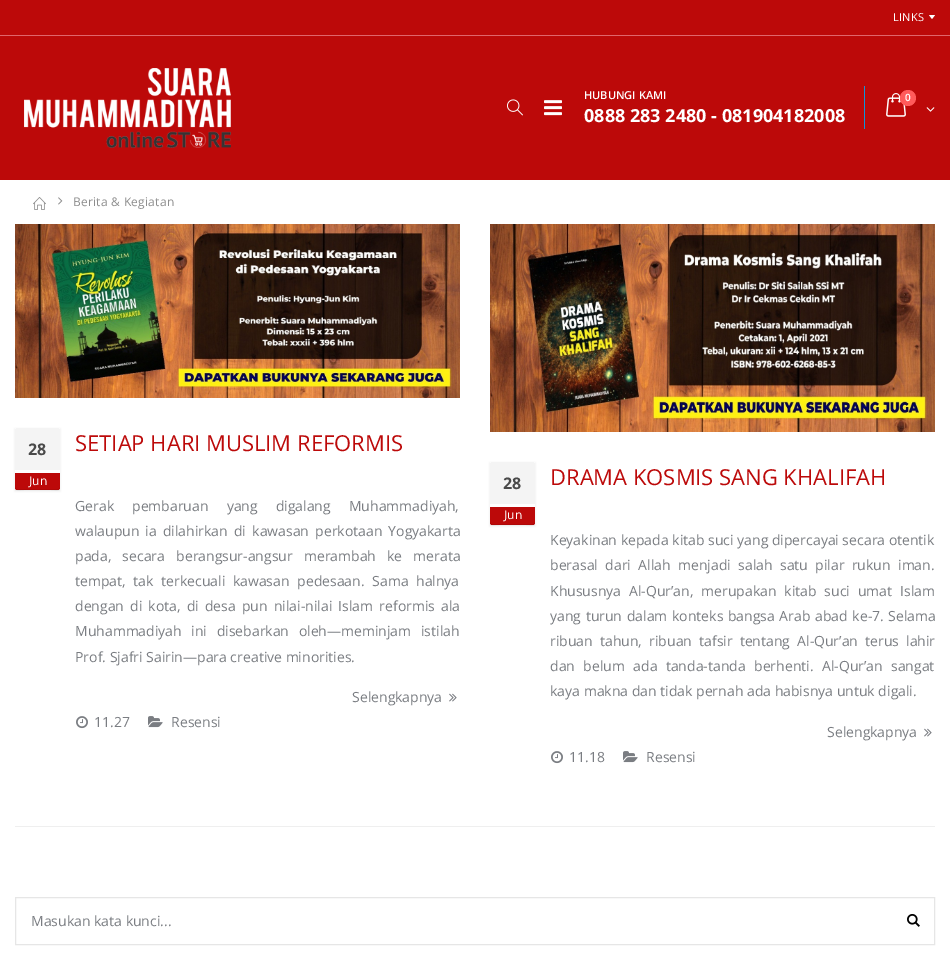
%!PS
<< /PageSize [950 979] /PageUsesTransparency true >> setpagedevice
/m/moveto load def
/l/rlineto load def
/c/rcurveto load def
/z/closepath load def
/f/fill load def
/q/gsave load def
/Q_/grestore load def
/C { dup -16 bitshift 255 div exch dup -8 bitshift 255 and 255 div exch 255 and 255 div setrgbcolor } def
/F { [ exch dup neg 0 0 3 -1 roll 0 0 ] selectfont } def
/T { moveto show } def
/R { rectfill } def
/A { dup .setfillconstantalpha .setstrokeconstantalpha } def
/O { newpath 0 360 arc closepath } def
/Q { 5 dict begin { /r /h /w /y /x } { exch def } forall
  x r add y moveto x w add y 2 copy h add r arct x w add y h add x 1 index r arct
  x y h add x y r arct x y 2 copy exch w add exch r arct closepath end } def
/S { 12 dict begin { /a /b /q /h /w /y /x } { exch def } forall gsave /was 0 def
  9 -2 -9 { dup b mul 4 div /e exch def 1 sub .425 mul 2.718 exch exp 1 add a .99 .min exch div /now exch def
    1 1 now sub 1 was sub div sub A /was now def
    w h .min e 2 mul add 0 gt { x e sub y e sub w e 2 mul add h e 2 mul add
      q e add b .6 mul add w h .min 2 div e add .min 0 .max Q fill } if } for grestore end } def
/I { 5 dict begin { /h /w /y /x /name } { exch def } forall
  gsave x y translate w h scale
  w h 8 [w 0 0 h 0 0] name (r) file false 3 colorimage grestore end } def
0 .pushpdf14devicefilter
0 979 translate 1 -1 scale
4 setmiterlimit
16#FFFFFF C
0 0 950 979 R
16#BC0909 C
0 0 950 180 R
16#E0666C C
0 35 950 1 R
/OpenSans-Regular 11 F
16#FFFFFF C
893 21 m .25 0 (LINKS) ashow
929 15 m 6 0 l -3 4 l z f
(1.rgb) 24 68 207 80 I
(2.rgb) 507 99 16 17 I
/OpenSans-SemiBold 11 F
(HUBUNGI KAMI) 584 99 T
16#0E95D9 C
864 86 1 43 R
/OpenSans-Bold 18 F
16#FFFFFF C
(0888 283 2480 - 081904182008) 584 122 T
(3.rgb) 886 93 20 24 I
16#FF5B5B C
908 98 8 O f
/OpenSans-SemiBold 10 F
16#FFFFFF C
(0) 905 101 T
(4.rgb) 926 107 9 5 I
(5.rgb) 544 100 18 16 I
(6.rgb) 33 197 13 13 I
(7.rgb) 58 197 5 8 I
/OpenSans-Regular 12 F
16#8E8E8E C
73 206 m .25 0 (Berita & Kegiatan) ashow
(8.rgb) 15 224 445 174 I
q
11 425 m 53 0 l 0 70 l -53 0 l z 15 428 m 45 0 l 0 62 l -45 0 l z eoclip newpath
16#000000 C
15 429 45 62 0 1 .1 S
Q_
16#F4F4F4 C
17 428 m 41 0 l 1 0 2 1 2 2 c 0 40 l -45 0 l 0 -40 l 0 -1 1 -2 2 -2 c z f
/OpenSans-Bold 16 F
16#4A4A4A C
(28) 28 455 T
16#BC0909 C
15 473 m 45 0 l 0 15 l 0 1 -1 2 -2 2 c -41 0 l -1 0 -2 -1 -2 -2 c z f
0.07 A
16#000000 C
15 487 m 0 5 5 3 9 3 c 27 0 l 4 0 9 2 9 -3 c 0 1 -1 2 -2 2 c -41 0 l -1 0 -2 -1 -2 -2 c z f
/OpenSans-Regular 12 F
1 A
16#FFFFFF C
(Jun) 29 485 T
/OpenSans-Regular 22 F
16#BC0909 C
(SETIAP HARI MUSLIM REFORMIS) 75 451 T
/OpenSans-Regular 14 F
16#7A7D82 C
75 511 m 14.5 0 32 (Gerak pembaruan yang digalang Muhammadiyah,) widthshow
75 536 m 2.5 0 32 (walaupun ia dilahirkan di kawasan perkotaan Yogyakarta) widthshow
75 561 m 7.5 0 32 (pada, secara berangsur-angsur merambah ke merata) widthshow
75 586 m 4 0 32 (tempat, tak terkecuali kawasan pedesaan. Sama halnya) widthshow
75 611 m 2.5 0 32 (dengan di kota, di desa pun nilai-nilai Islam reformis ala) widthshow
75 636 m 6 0 32 (Muhammadiyah ini disebarkan oleh—meminjam istilah) widthshow
(Prof. Sjafri Sairin—para creative minorities.) 75 662 T
(Selengkapnya) 352 702 T
(9.rgb) 449 693 8 9 I
(10.rgb) 76 716 12 13 I
(11.27) 94 727 T
(11.rgb) 148 716 15 12 I
(Resensi) 171 727 T
(12.rgb) 490 224 445 208 I
q
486 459 m 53 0 l 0 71 l -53 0 l z 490 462 m 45 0 l 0 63 l -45 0 l z eoclip newpath
16#000000 C
490 463 45 63 0 1 .1 S
Q_
16#F4F4F4 C
492 462 m 41 0 l 1 0 2 1 2 2 c 0 40 l -45 0 l 0 -40 l 0 -1 1 -2 2 -2 c z f
/OpenSans-Bold 16 F
16#4A4A4A C
(28) 503 489 T
16#BC0909 C
490 507 m 45 0 l 0 16 l 0 1 -1 2 -2 2 c -41 0 l -1 0 -2 -1 -2 -2 c z f
0.07 A
16#000000 C
490 522 m 0 5 5 3 9 3 c 27 0 l 4 0 9 2 9 -3 c 0 1 -1 2 -2 2 c -41 0 l -1 0 -2 -1 -2 -2 c z f
/OpenSans-Regular 12 F
1 A
16#FFFFFF C
(Jun) 504 519 T
/OpenSans-Regular 22 F
16#BC0909 C
(DRAMA KOSMIS SANG KHALIFAH) 550 485 T
/OpenSans-Regular 14 F
16#7A7D82 C
(Keyakinan kepada kitab suci yang dipercayai secara otentik) 550 545 T
550 570 m 3.75 0 32 (berasal dari Allah menjadi salah satu pilar rukun iman.) widthshow
550 596 m 4.25 0 32 (Khususnya Al-Qur’an, merupakan kitab suci umat Islam) widthshow
550 621 m 1 0 32 (yang turun dalam konteks bangsa Arab abad ke-7. Selama) widthshow
550 646 m 3.5 0 32 (ribuan tahun, ribuan tafsir tentang Al-Qur’an terus lahir) widthshow
550 671 m 4.75 0 32 (dan belum ada tanda-tanda berhenti. Al-Qur’an sangat) widthshow
(kaya makna dan tidak pernah ada habisnya untuk digali.) 550 696 T
(Selengkapnya) 827 737 T
(9.rgb) 924 728 8 9 I
(10.rgb) 551 751 12 13 I
(11.18) 569 762 T
(11.rgb) 623 751 15 12 I
(Resensi) 646 762 T
16#EFEFEF C
15 826 920 1 R
16#E6E6E6 C
15.5 897.5 919 47 rectstroke
16#7A7D82 C
(Masukan kata kunci...) 31 926 T
(13.rgb) 907 914 13 13 I
.poppdf14devicefilter showpage
